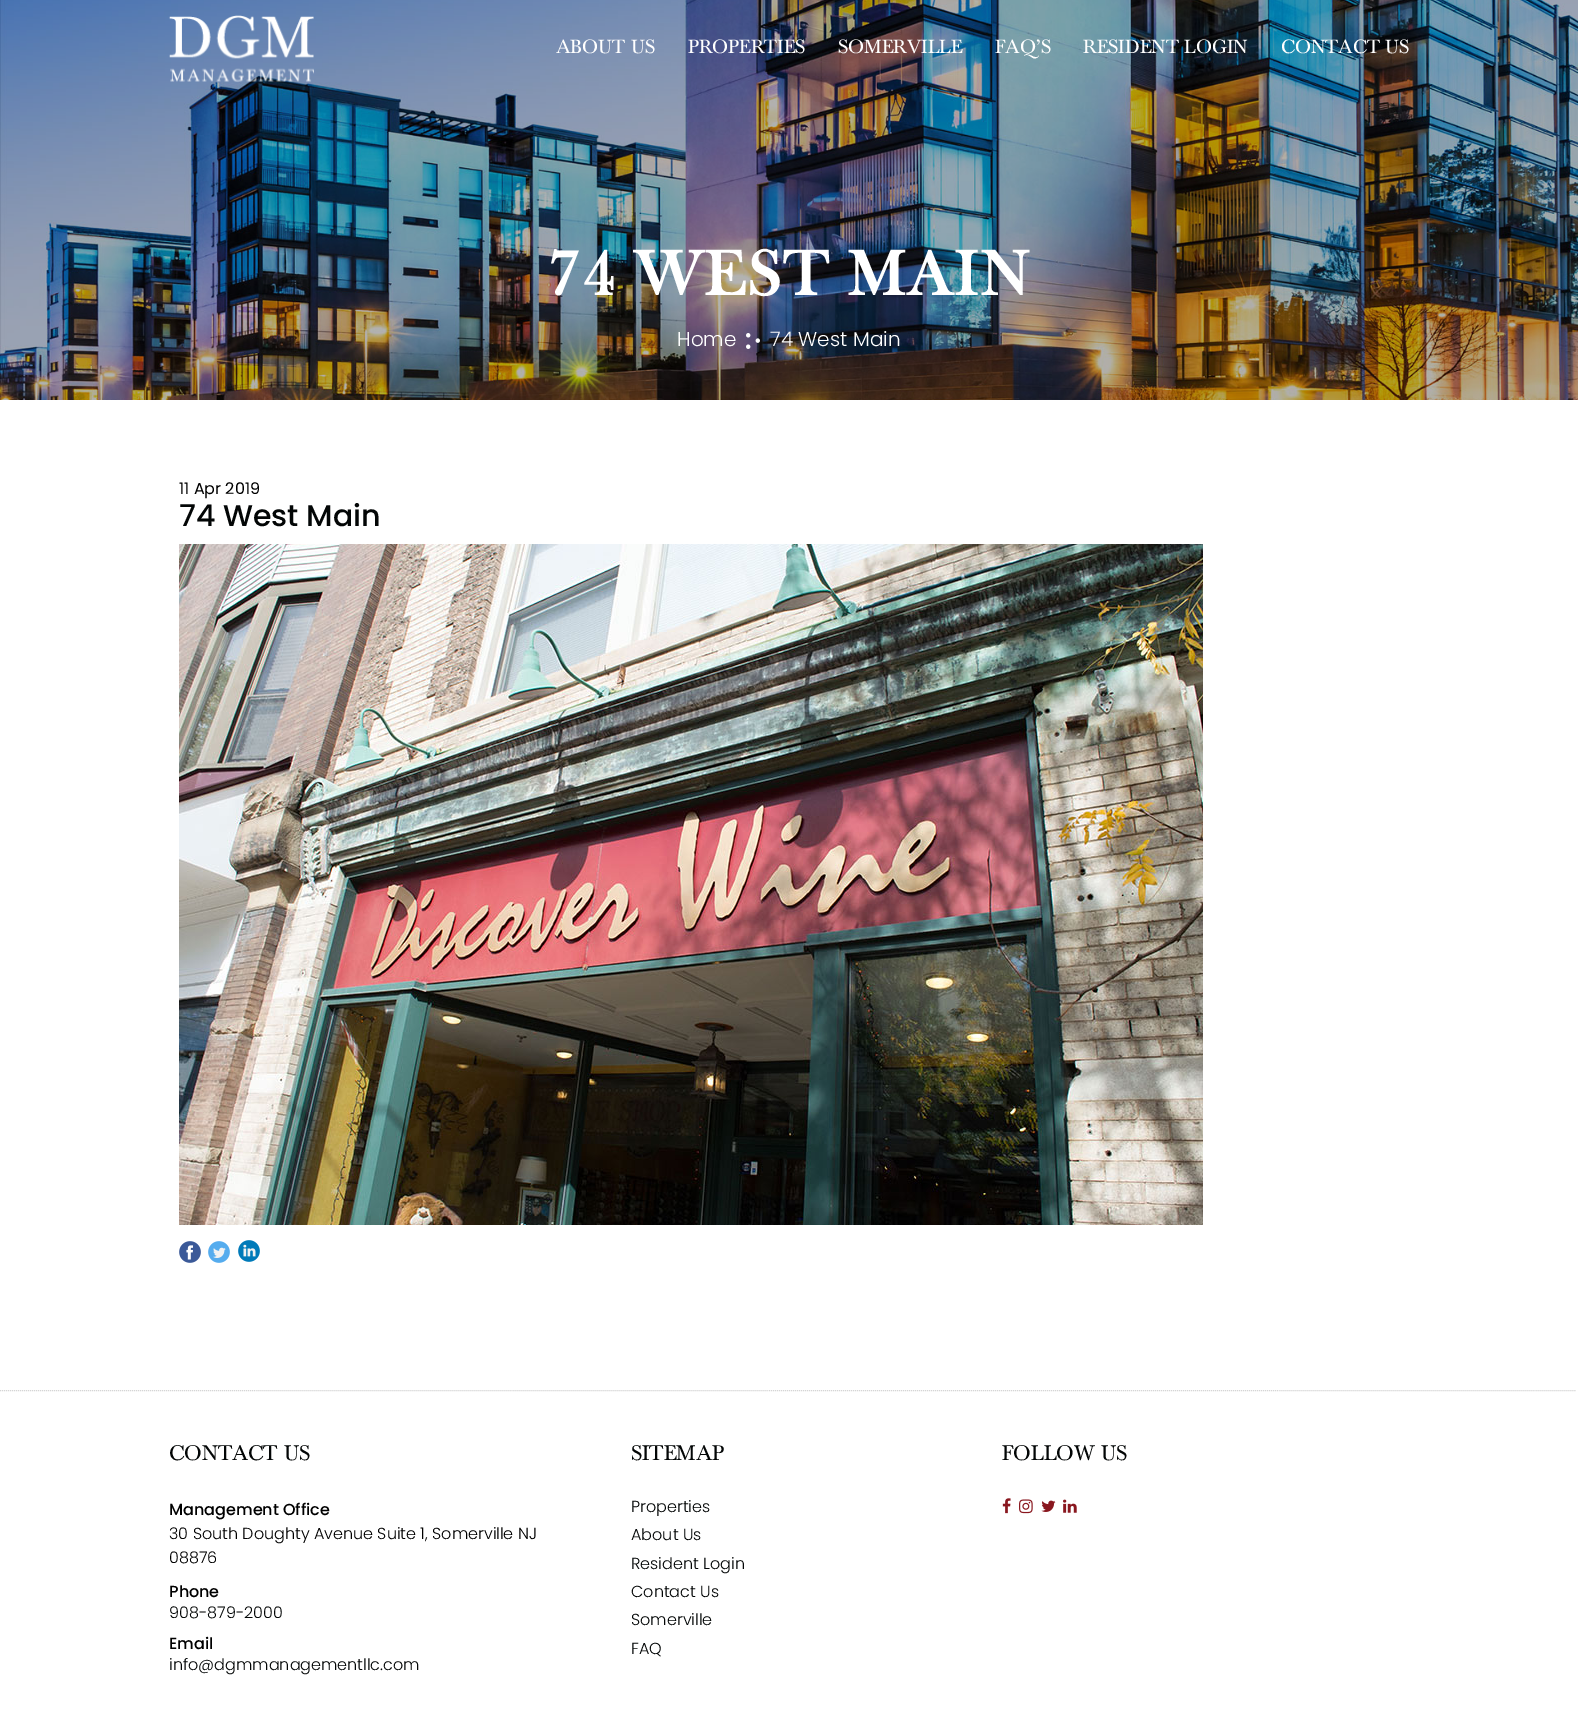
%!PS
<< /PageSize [1578 1712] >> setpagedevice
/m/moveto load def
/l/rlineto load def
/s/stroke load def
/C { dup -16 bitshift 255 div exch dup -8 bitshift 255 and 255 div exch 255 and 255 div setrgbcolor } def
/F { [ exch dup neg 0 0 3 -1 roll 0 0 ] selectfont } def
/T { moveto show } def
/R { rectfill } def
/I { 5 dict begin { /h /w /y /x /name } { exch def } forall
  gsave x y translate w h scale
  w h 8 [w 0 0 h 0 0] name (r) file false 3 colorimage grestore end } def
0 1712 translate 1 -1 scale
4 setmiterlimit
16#FFFFFF C
0 0 1578 1712 R
(2.rgb) 0 0 1578 400 I
(1.rgb) 169 15 145 67 I
/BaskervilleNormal-Thin 20 F
(ABOUT US) 556 53 T
(PROPERTIES) 688 53 T
(SOMERVILLE) 838 53 T
(FAQ’S) 995 53 T
(RESIDENT LOGIN) 1083 53 T
(CONTACT US) 1281 53 T
/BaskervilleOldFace-Bold 65 F
548 295 m 2 0 (74 WEST MAIN) ashow
/Poppins-Light 20 F
(Home) 677 346 T
(3.rgb) 746 333 14 16 I
(74 West Main) 770 346 T
/Poppins-Regular 16 F
16#000000 C
(11 Apr 2019) 179 494 T
/Poppins-Medium 30 F
16#030606 C
(74 West Main) 179 526 T
(4.rgb) 179 544 1024 681 I
(5.rgb) 179 1241 22 22 I
(6.rgb) 208 1241 22 22 I
(7.rgb) 238 1240 22 22 I
16#D5D5D5 C
[1 1] 0 setdash
0 1390.5 m 1578 0 l s
/BaskervilleNormal-Thin 22 F
16#030606 C
(CONTACT US) 169 1460 T
/Poppins-Medium 16 F
16#000000 C
(Management Office) 169 1515 T
/Poppins-Light 16 F
(30 South Doughty Avenue Suite 1, Somerville NJ) 169 1539 T
(08876) 169 1563 T
/Poppins-Medium 16 F
(Phone) 169 1597 T
/Poppins-Light 16 F
16#030606 C
(908-879-2000) 169 1618 T
/Poppins-Medium 16 F
16#000000 C
(Email) 169 1649 T
/Poppins-Light 16 F
16#030606 C
(info@dgmmanagementllc.com) 169 1670 T
/BaskervilleNormal-Thin 22 F
(SITEMAP) 631 1460 T
/Poppins-Light 16 F
(Properties) 631 1512 T
(About Us) 631 1540 T
(Resident Login) 631 1569 T
(Contact Us) 631 1597 T
(Somerville) 631 1625 T
(FAQ) 631 1654 T
/BaskervilleNormal-Thin 22 F
(FOLLOW US) 1002 1460 T
(8.rgb) 1002 1498 9 16 I
(9.rgb) 1019 1499 14 15 I
(10.rgb) 1041 1500 15 12 I
(11.rgb) 1063 1499 14 14 I
showpage
